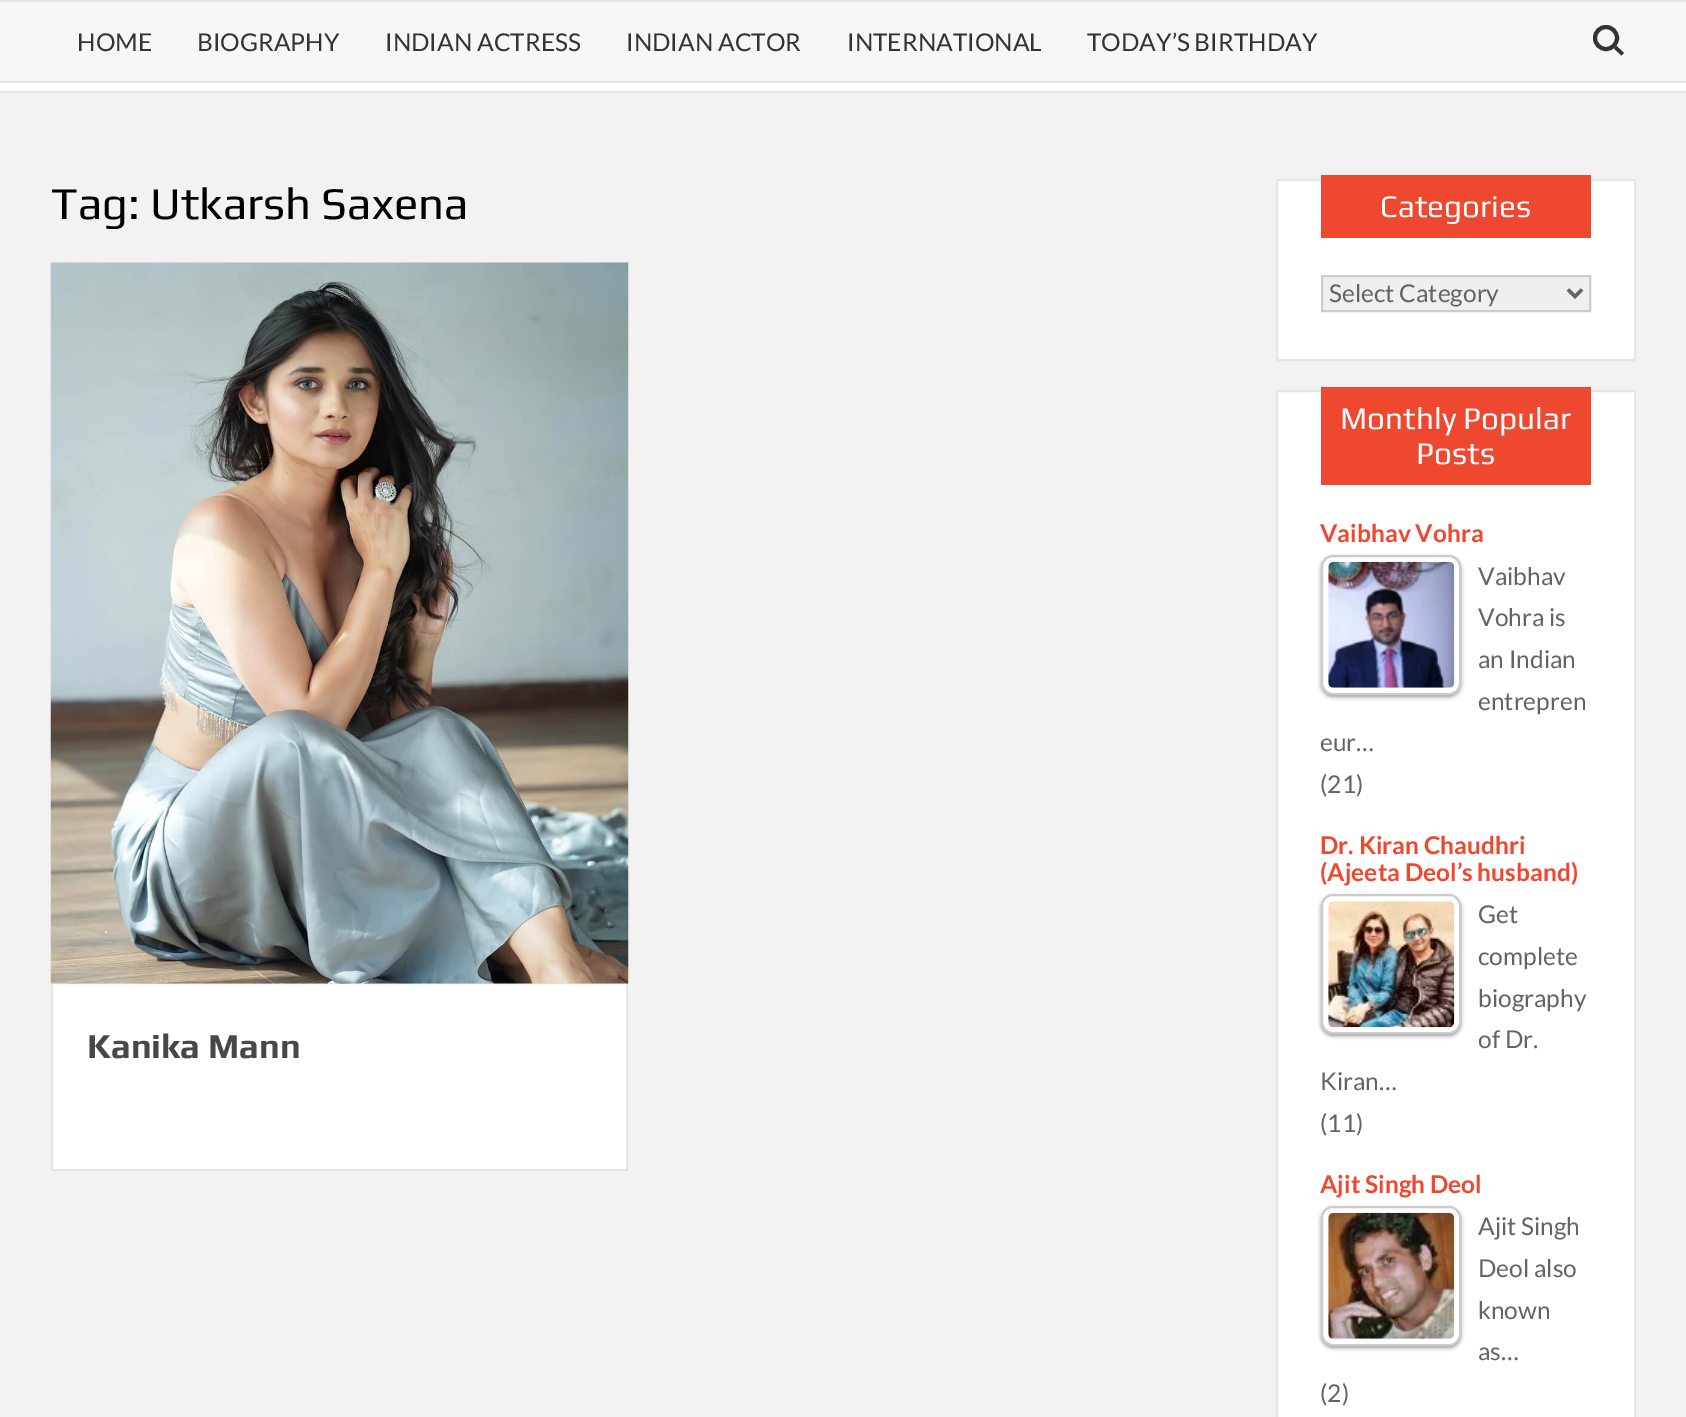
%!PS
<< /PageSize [1686 1417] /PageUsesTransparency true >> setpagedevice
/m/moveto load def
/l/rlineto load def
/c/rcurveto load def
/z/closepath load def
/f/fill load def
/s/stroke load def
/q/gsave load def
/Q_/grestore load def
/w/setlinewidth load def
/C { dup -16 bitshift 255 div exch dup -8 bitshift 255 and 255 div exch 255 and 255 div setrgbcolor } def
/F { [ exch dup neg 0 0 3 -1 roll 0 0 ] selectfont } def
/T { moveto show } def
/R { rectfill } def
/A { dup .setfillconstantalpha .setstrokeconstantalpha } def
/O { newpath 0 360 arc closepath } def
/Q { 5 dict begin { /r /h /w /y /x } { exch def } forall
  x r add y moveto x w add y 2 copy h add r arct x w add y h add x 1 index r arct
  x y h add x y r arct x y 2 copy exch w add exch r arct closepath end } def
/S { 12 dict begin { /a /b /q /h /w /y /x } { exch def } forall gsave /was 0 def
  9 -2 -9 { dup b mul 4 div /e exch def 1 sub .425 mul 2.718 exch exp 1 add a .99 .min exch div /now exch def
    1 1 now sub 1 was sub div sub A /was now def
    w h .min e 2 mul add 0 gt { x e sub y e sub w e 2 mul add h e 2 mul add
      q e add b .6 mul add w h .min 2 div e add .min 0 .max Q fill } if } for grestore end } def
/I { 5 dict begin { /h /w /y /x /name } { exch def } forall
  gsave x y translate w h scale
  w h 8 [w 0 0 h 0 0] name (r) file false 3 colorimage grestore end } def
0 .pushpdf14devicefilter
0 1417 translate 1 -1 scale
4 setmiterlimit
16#F2F2F2 C
0 0 1686 1417 R
16#E4E4E4 C
0 91 1686 2 R
16#F7F7F7 C
0 2 1686 79 R
16#FFFFFF C
0 83 1686 8 R
16#E4E4E4 C
0 0 1686 2 R
0 81 1686 2 R
/Lato-Regular 24.5 F
16#333333 C
(HOME) 77 51 T
(BIOGRAPHY) 197 51 T
(INDIAN ACTRESS) 385 51 T
(INDIAN ACTOR) 626 51 T
(INTERNATIONAL) 847 51 T
(TODAY’S BIRTHDAY) 1087 51 T
4 w
1606 38 11 O s
1616.5 46 m 7.5 7 l -2.5 2.5 l -7.5 -7 l z f
/Play-Regular 45.5 F
16#000000 C
(Tag: Utkarsh Saxena) 51 219 T
16#FFFFFF C
52 983 m 575 0 l 0 187 l -575 0 l z q f Q_
16#E6E6E6 C
2 w
s
(1.rgb) 50 262 579 722 I
/Play-Bold 35 F
16#474747 C
(Kanika Mann) 87 1058 T
16#FFFFFF C
1277 180 m 358 0 l 0 180 l -358 0 l z q f Q_
16#E6E6E6 C
s
16#EE4930 C
1321 175 270 63 R
/Play-Regular 31.5 F
16#FFFFFF C
(Categories) 1380 217 T
16#EFEFEF C
1322 276 m 268 0 l 0 35 l -268 0 l z q f Q_
16#CCCCCC C
s
16#636363 C
3.5 w
1568 289.5 m 7 7 l 7 -7 l s
/Lato-Regular 24.5 F
(Select Category) 1329 302 T
16#FFFFFF C
1277 391 m 358 0 l 0 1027 l -358 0 l z q f Q_
16#E6E6E6 C
2 w
s
16#EE4930 C
1321 387 270 98 R
/Play-Regular 31.5 F
16#FFFFFF C
(Monthly Popular) 1340 429 T
(Posts) 1416 464 T
/Lato-Bold 24.5 F
16#EE4930 C
(Vaibhav Vohra) 1320 542 T
q
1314 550 m 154 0 l 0 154 l -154 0 l z 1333 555 m 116 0 l 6.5 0 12 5.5 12 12 c 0 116 l 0 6.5 -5.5 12 -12 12 c -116 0 l -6.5 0 -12 -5.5 -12 -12 c 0 -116 l 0 -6.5 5.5 -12 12 -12 c z eoclip newpath
16#000000 C
1321 557 140 140 12 2 .4 S
Q_
16#CCCCCC C
1322 556 138 138 11 Q s
(2.rgb) 1328 561 127 127 I
/Lato-Regular 24.5 F
16#636363 C
(Vaibhav) 1478 585 T
(Vohra is) 1478 626 T
(an Indian) 1478 668 T
(entrepren) 1478 710 T
(eur…) 1320 751 T
(\(21\)) 1320 793 T
/Lato-Bold 24.5 F
16#EE4930 C
(Dr. Kiran Chaudhri) 1320 854 T
(\(Ajeeta Deol’s husband\)) 1320 881 T
q
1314 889 m 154 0 l 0 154 l -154 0 l z 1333 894 m 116 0 l 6.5 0 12 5.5 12 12 c 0 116 l 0 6.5 -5.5 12 -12 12 c -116 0 l -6.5 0 -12 -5.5 -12 -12 c 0 -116 l 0 -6.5 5.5 -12 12 -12 c z eoclip newpath
16#000000 C
1321 896 140 140 12 2 .4 S
Q_
16#CCCCCC C
1322 895 138 138 11 Q s
(3.rgb) 1328 901 127 127 I
/Lato-Regular 24.5 F
16#636363 C
(Get) 1478 923 T
(complete) 1478 965 T
(biography) 1478 1007 T
(of Dr.) 1478 1048 T
(Kiran…) 1320 1090 T
(\(11\)) 1320 1132 T
/Lato-Bold 24.5 F
16#EE4930 C
(Ajit Singh Deol) 1320 1193 T
q
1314 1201 m 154 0 l 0 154 l -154 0 l z 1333 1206 m 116 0 l 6.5 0 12 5.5 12 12 c 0 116 l 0 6.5 -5.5 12 -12 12 c -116 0 l -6.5 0 -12 -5.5 -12 -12 c 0 -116 l 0 -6.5 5.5 -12 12 -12 c z eoclip newpath
16#000000 C
1321 1208 140 140 12 2 .4 S
Q_
16#CCCCCC C
1322 1207 138 138 11 Q s
(4.rgb) 1328 1212 127 127 I
/Lato-Regular 24.5 F
16#636363 C
(Ajit Singh) 1478 1235 T
(Deol also) 1478 1277 T
(known) 1478 1319 T
(as…) 1478 1360 T
(\(2\)) 1320 1402 T
.poppdf14devicefilter showpage
